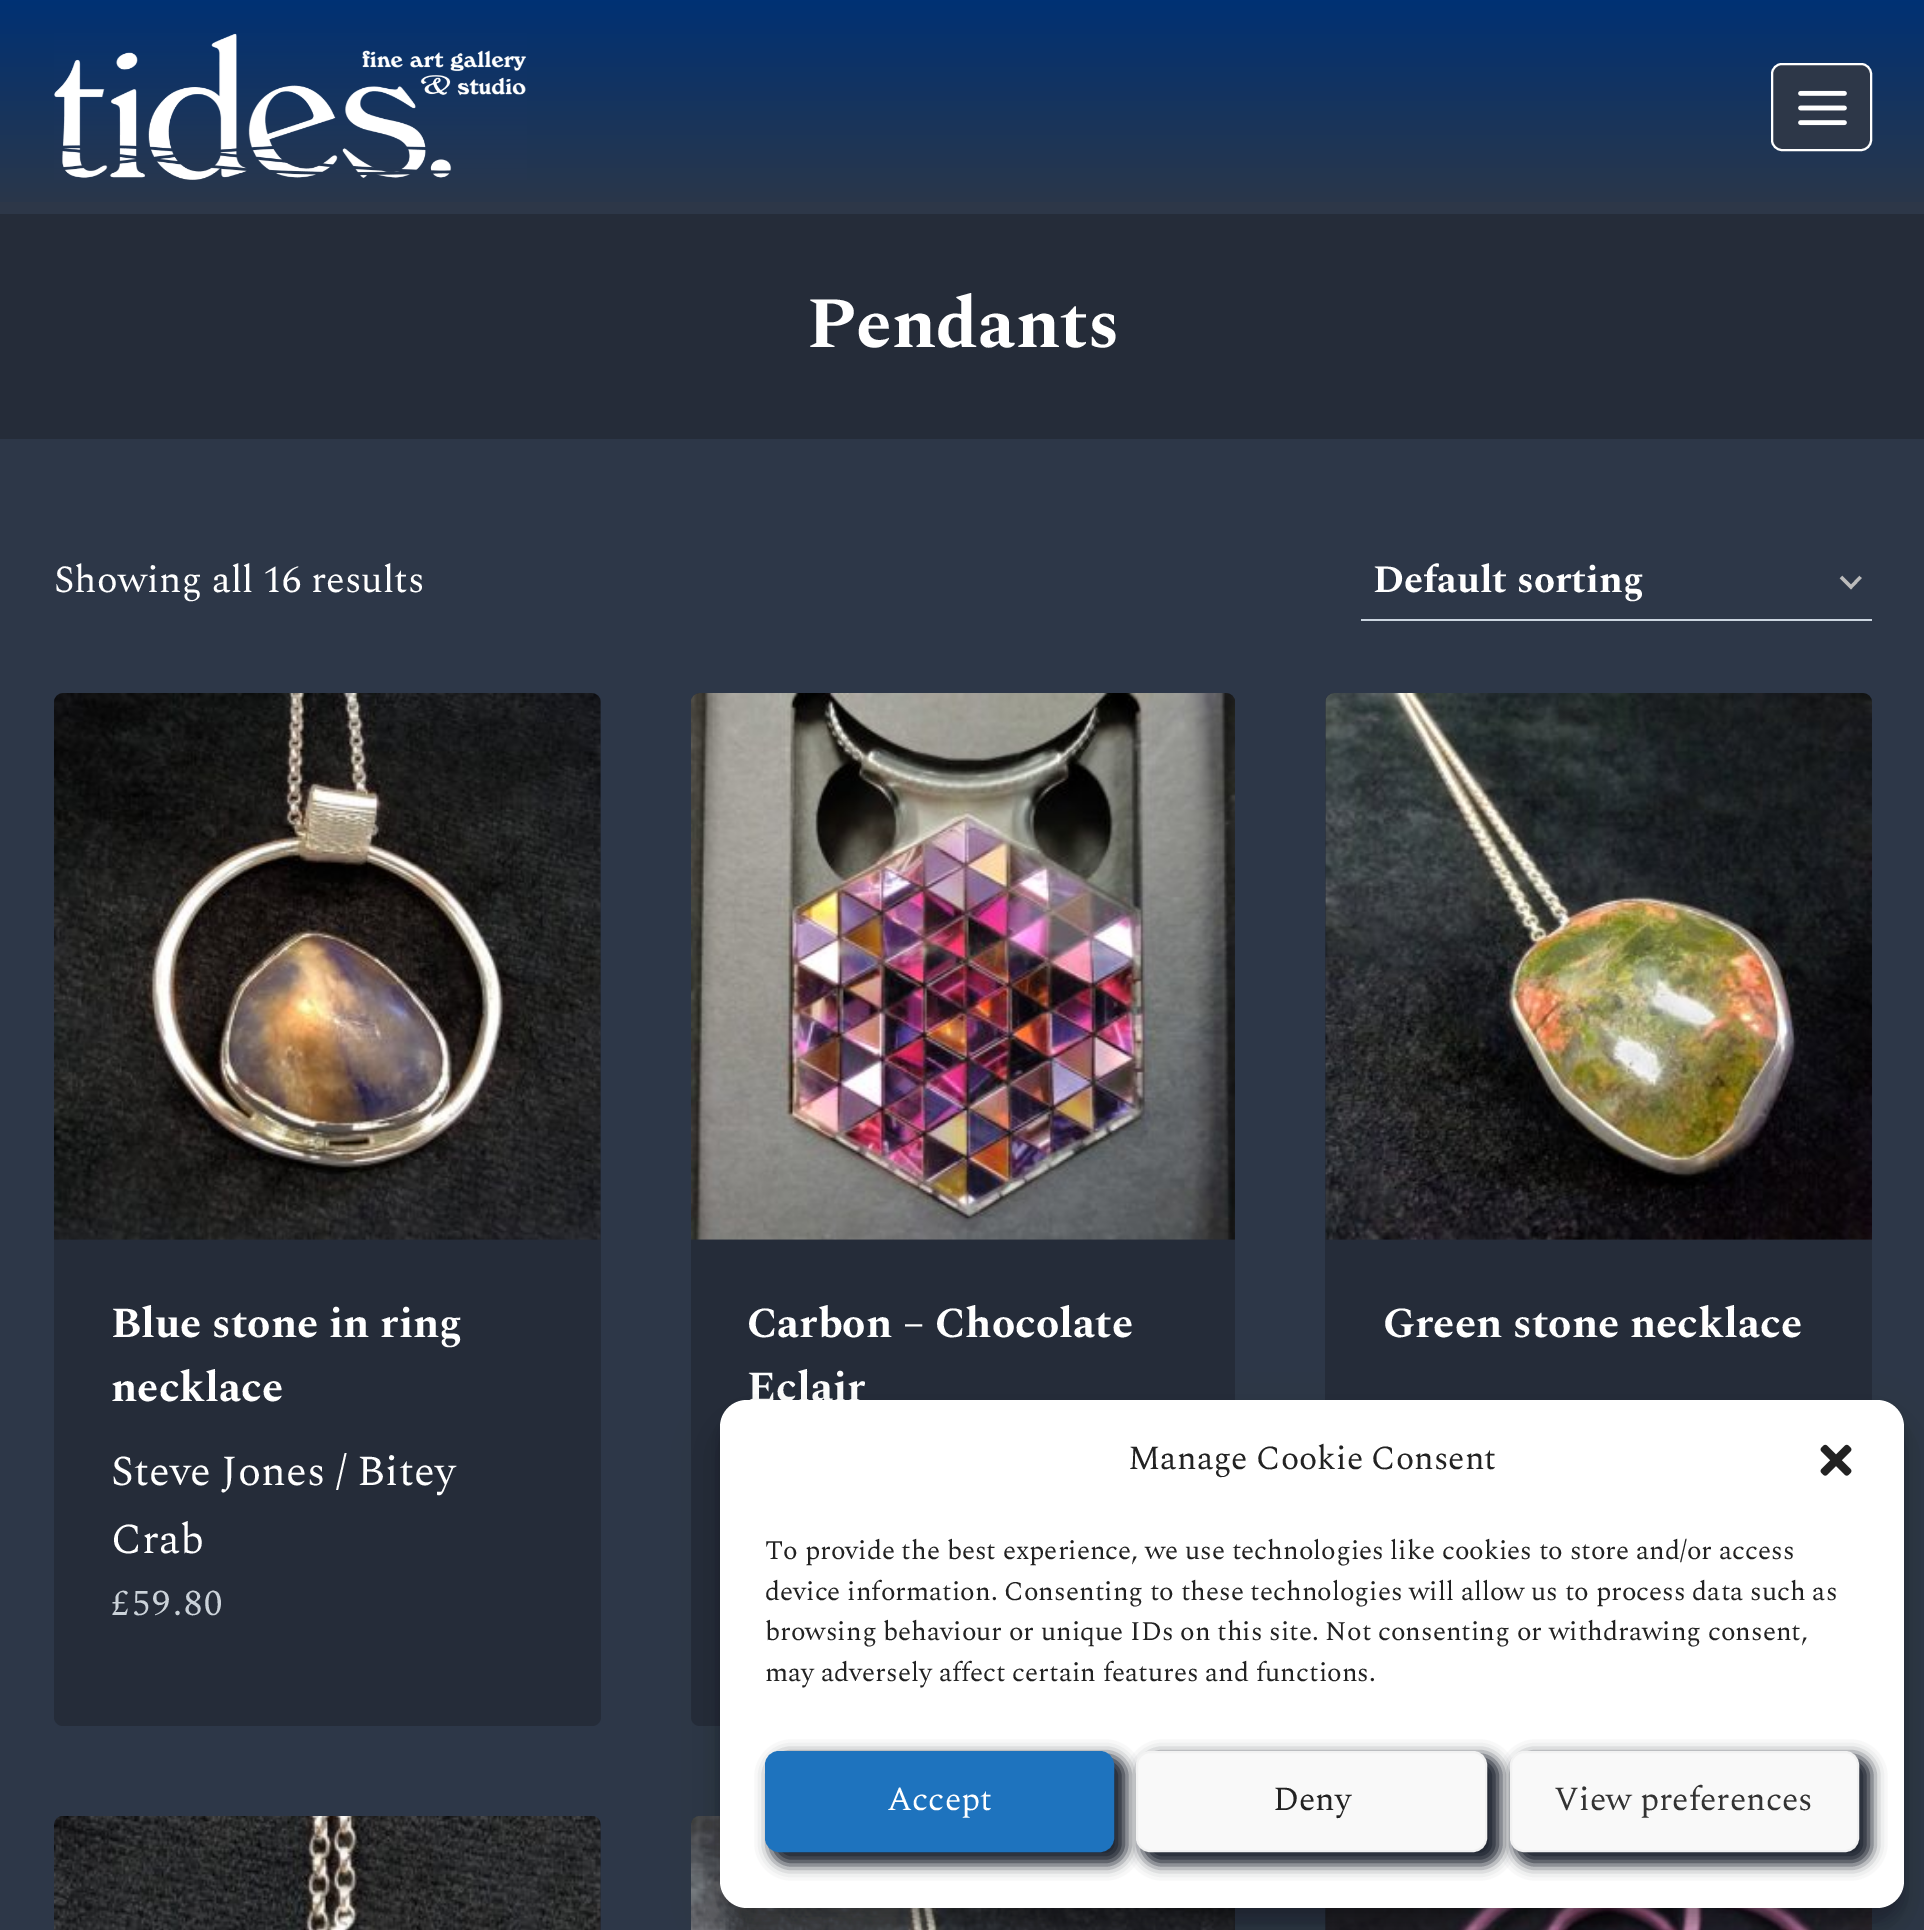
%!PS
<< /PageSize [1924 1930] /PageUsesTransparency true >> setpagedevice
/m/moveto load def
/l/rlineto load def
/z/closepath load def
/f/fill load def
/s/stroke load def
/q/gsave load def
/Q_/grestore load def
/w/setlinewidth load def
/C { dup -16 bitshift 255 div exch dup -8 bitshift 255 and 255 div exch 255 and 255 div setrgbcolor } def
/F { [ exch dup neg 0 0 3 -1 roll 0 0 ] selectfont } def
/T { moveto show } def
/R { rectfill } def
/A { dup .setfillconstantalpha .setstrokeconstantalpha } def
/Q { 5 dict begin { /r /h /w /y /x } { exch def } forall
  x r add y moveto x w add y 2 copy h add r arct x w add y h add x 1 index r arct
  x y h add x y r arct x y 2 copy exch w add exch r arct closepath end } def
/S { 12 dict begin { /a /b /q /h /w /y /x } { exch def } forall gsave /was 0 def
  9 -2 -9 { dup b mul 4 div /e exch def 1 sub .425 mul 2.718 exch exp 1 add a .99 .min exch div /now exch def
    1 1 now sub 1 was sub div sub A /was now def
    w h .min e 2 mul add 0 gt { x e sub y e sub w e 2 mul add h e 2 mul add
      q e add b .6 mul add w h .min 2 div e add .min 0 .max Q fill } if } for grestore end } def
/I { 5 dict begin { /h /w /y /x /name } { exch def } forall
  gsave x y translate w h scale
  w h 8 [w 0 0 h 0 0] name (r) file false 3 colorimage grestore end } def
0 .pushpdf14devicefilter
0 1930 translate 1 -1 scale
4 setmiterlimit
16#2D3748 C
0 0 1924 1930 R
q 0 0 m 1924 0 l 0 202 l -1924 0 l z clip newpath
<< /ShadingType 2 /ColorSpace /DeviceRGB /Coords [963 214 963 0] /Extend [true true] /Function << /FunctionType 2 /Domain [0 1] /C0 [.176 .216 .282] /C1 [0 .192 .455] /N 1 >> >> shfill Q_
(1.rgb) 54 33 473 147 I
1772 64 99 86 10 Q q f Q_
16#FFFFFF C
2 w
s
(2.rgb) 1798 90 49 36 I
16#252C39 C
0 214 1924 225 R
/Spectral-Bold 72 F
16#FFFFFF C
(Pendants) 807 347 T
/Spectral-Regular 38.5 F
(Showing all 16 results) 54 592 T
16#BBBBBB C
3.2 w
1841 577 m 10 10 l 9.5 -10 l s
16#CBD5E0 C
1361 619 511 2 R
/Spectral-Bold 38.5 F
16#FFFFFF C
(Default sorting) 1373 592 T
16#252C39 C
54 693 547 1033 9 Q f
(3.rgb) 54 693 547 547 I
/Spectral-Bold 42.75 F
16#FFFFFF C
(Blue stone in ring) 111 1337 T
(necklace) 111 1401 T
/Spectral-Regular 42.75 F
(Steve Jones / Bitey) 111 1485 T
(Crab) 111 1553 T
/Spectral-Regular 36.5 F
16#CBD2D9 C
111 1615 m 2.25 0 (£59.80) ashow
16#252C39 C
691 693 544 1033 9 Q f
(4.rgb) 691 693 544 547 I
/Spectral-Bold 42.75 F
16#FFFFFF C
(Carbon – Chocolate) 747 1337 T
(Eclair) 747 1401 T
16#252C39 C
1325 693 547 1033 9 Q f
(5.rgb) 1325 693 547 547 I
16#FFFFFF C
(Green stone necklace) 1383 1337 T
16#252C39 C
54 1816 547 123 9 Q f
(6.rgb) 54 1816 547 114 I
(7.rgb) 691 1816 544 114 I
1325 1908 1 22 R
(8.rgb) 1325 1908 547 22 I
16#000000 C
720 1413 1184 509 27 7 .23 S
720 1422 1184 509 27 22.5 .19 S
16#FFFFFF C
720 1400 1184 508 27 Q f
/Spectral-Regular 33.75 F
16#222222 C
(Manage Cookie Consent) 1128 1469 T
(9.rgb) 1820 1444 32 32 I
/Spectral-Regular 27 F
(To provide the best experience, we use technologies like cookies to store and/or access) 765 1559 T
(device information. Consenting to these technologies will allow us to process data such as) 765 1600 T
(browsing behaviour or unique IDs on this site. Not consenting or withdrawing consent,) 765 1640 T
(may adversely affect certain features and functions.) 765 1681 T
16#1A202C C
770 1755 357 110 18 7 1 S
16#1E73BE C
766 1752 347 99 13 Q q f Q_
2 w
s
/Spectral-Regular 33.75 F
16#FFFFFF C
(Accept) 887 1810 T
16#1A202C C
1141 1755 360 110 18 7 1 S
16#F9F9F9 C
1137 1752 349 99 13 Q q f Q_
16#F2F2F2 C
s
16#222222 C
(Deny) 1273 1810 T
16#1A202C C
1514 1755 358 110 18 7 1 S
16#F9F9F9 C
1511 1752 347 99 13 Q q f Q_
16#F2F2F2 C
s
16#333333 C
(View preferences) 1554 1810 T
.poppdf14devicefilter showpage
